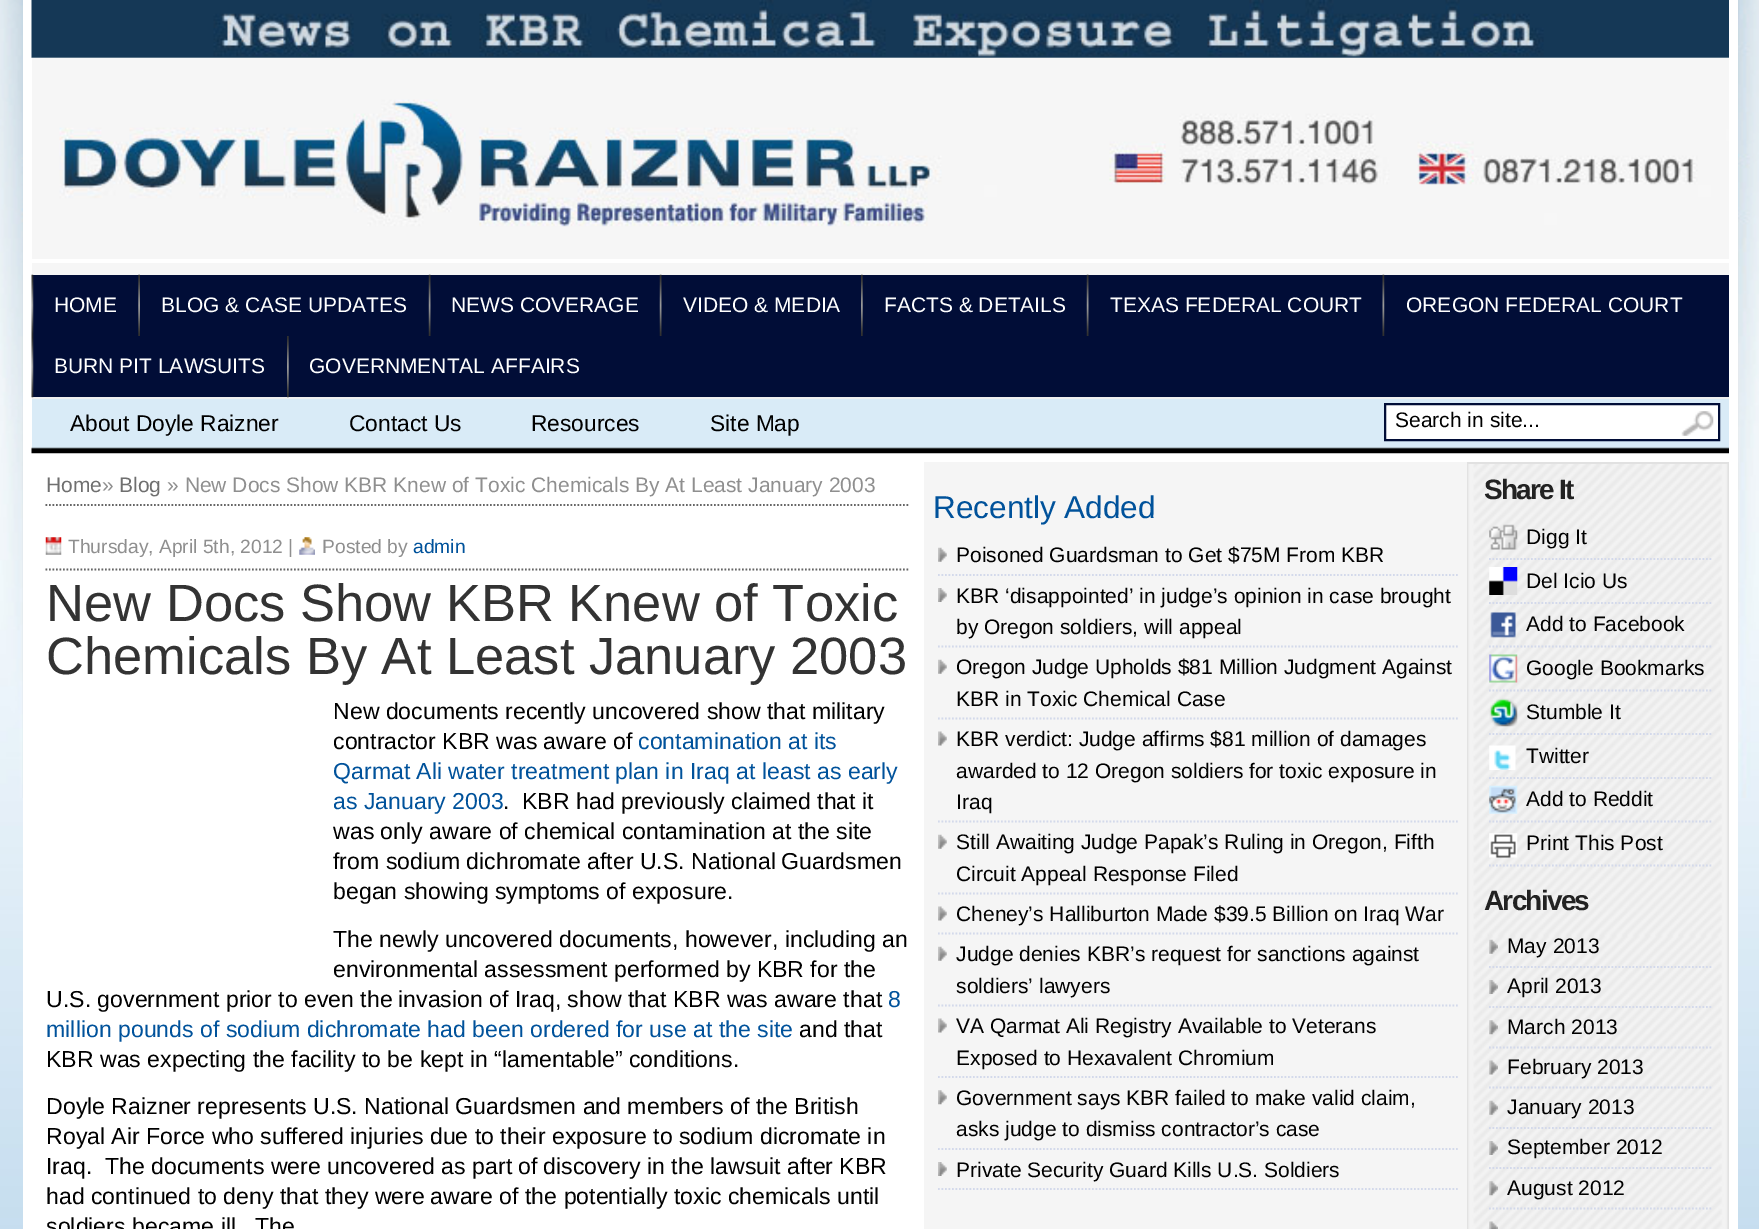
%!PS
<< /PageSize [1759 1229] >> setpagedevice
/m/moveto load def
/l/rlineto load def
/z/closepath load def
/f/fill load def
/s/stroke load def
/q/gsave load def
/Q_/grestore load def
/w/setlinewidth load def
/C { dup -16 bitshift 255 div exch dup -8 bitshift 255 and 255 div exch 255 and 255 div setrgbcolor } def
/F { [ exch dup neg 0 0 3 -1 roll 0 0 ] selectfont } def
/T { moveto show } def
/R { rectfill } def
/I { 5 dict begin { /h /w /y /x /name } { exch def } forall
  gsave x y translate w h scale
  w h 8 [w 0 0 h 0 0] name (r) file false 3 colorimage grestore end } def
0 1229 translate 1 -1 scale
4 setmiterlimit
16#FFFFFF C
0 0 1759 1229 R
(1.rgb) 0 798 1759 431 I
(2.rgb) 0 0 1759 798 I
23 0 1715 1229 R
(3.rgb) 31 0 1698 58 I
16#F6F6F6 C
32 227 1697 32 R
(4.rgb) 32 57 1697 170 I
32 263 1697 12 R
16#010D37 C
33 275 1696 122 R
16#EFEFEF C
32 397 1697 2 R
(5.rgb) 31 274 3 62 I
/LiberationSans-Regular 21 F
16#FFFFFF C
(HOME) 54 312 T
(6.rgb) 138 274 2 62 I
(BLOG & CASE UPDATES) 161 312 T
(7.rgb) 428 274 3 62 I
(NEWS COVERAGE) 451 312 T
(7.rgb) 659 274 3 62 I
(VIDEO & MEDIA) 683 312 T
(8.rgb) 861 274 2 62 I
(FACTS & DETAILS) 884 312 T
(7.rgb) 1086 274 3 62 I
(TEXAS FEDERAL COURT) 1110 312 T
(9.rgb) 1382 274 3 62 I
(OREGON FEDERAL COURT) 1406 312 T
(10.rgb) 31 336 3 62 I
(BURN PIT LAWSUITS) 54 373 T
(11.rgb) 287 336 2 62 I
(GOVERNMENTAL AFFAIRS) 309 373 T
16#D9EBF7 C
32 399 1697 50 R
(12.rgb) 31 447 1698 7 I
/LiberationSans-Regular 22.75 F
16#000000 C
(About Doyle Raizner) 70 431 T
(Contact Us) 349 431 T
(Resources) 531 431 T
(Site Map) 710 431 T
16#FFFFFF C
1385 404 m 334 0 l 0 36 l -334 0 l z q f Q_
16#010D37 C
2 w
s
/LiberationSans-Regular 21 F
16#000000 C
(Search in site...) 1395 427 T
(13.rgb) 1681 411 33 25 I
16#666666 C
1.8 w
[1.75 1.75] 0 setdash
45.5 505 m 864.5 0 l s
16#6F6F6F C
(Home) 46 492 T
16#8F8F8F C
(») 102 492 T
16#6F6F6F C
(Blog) 119 492 T
16#8F8F8F C
(» New Docs Show KBR Knew of Toxic Chemicals By At Least January 2003) 167 492 T
16#666666 C
45.5 569.5 m 864.5 0 l s
(14.rgb) 45 537 17 18 I
/LiberationSans-Regular 19.25 F
16#8F8F8F C
(Thursday, April 5th, 2012 |) 68 553 T
(15.rgb) 299 537 16 18 I
(Posted by) 322 553 T
16#00529B C
(admin) 413 553 T
/LiberationSans-Regular 52.5 F
16#333333 C
(New Docs Show KBR Knew of Toxic) 46 621 T
(Chemicals By At Least January 2003) 46 674 T
/LiberationSans-Regular 23.1 F
16#000000 C
(New documents recently uncovered show that military) 333 719 T
(contractor KBR was aware of) 333 749 T
16#00529B C
(contamination at its) 638 749 T
(Qarmat Ali water treatment plan in Iraq at least as early) 333 779 T
(as January 2003) 333 809 T
16#000000 C
(.) 503 809 T
(KBR had previously claimed that it) 522 809 T
(was only aware of chemical contamination at the site) 333 839 T
(from sodium dichromate after U.S. National) 333 869 T
(Guardsmen) 781 869 T
(began showing symptoms of exposure.) 333 899 T
(The newly uncovered documents, however, including an) 333 947 T
(environmental assessment performed by KBR for the) 333 977 T
(U.S. government prior to even the) 46 1007 T
(invasion of Iraq, show that KBR was aware that) 398 1007 T
16#00529B C
(8) 888 1007 T
(million pounds of sodium dichromate had been ordered for use at the site) 46 1037 T
16#000000 C
(and that) 799 1037 T
(KBR was expecting the facility to be kept in “lamentable” conditions.) 46 1067 T
(Doyle Raizner represents U.S. National Guardsmen and members of the British) 46 1114 T
(Royal Air Force who suffered injuries due to their exposure to sodium dicromate in) 46 1144 T
(Iraq.  The documents were uncovered as part of) 46 1174 T
(discovery in the lawsuit after KBR) 543 1174 T
(had continued to deny that they were) 46 1204 T
(aware of the potentially toxic chemicals until) 430 1204 T
(soldiers became ill.  The) 46 1234 T
16#F5F5F5 C
924 462 543 767 R
/LiberationSans-Regular 31.5 F
16#00529B C
(Recently Added) 933 518 T
(16.rgb) 938 547 9 15 I
16#D3D9EB C
938 575 m 520 0 l s
/LiberationSans-Regular 21 F
16#000000 C
(Poisoned Guardsman to Get $75M From KBR) 956 562 T
(17.rgb) 938 588 9 14 I
16#D3D9EB C
938 646.5 m 520 0 l s
16#000000 C
(KBR ‘disappointed’ in judge’s opinion in case brought) 956 603 T
(by Oregon soldiers, will appeal) 956 634 T
(16.rgb) 938 659 9 15 I
16#D3D9EB C
938 718.5 m 520 0 l s
16#000000 C
(Oregon Judge Upholds $81 Million Judgment Against) 956 674 T
(KBR in Toxic Chemical Case) 956 706 T
(18.rgb) 938 731 9 15 I
16#D3D9EB C
938 821.5 m 520 0 l s
16#000000 C
(KBR verdict: Judge affirms $81 million of damages) 956 746 T
(awarded to 12 Oregon soldiers for toxic exposure in) 956 778 T
(Iraq) 956 809 T
(16.rgb) 938 834 9 15 I
16#D3D9EB C
938 893.5 m 520 0 l s
16#000000 C
(Still Awaiting Judge Papak’s Ruling in Oregon, Fifth) 956 849 T
(Circuit Appeal Response Filed) 956 881 T
(18.rgb) 938 906 9 15 I
16#D3D9EB C
938 933.5 m 520 0 l s
16#000000 C
(Cheney’s Halliburton Made $39.5 Billion on Iraq War) 956 921 T
(16.rgb) 938 946 9 15 I
16#D3D9EB C
938 1005.5 m 520 0 l s
16#000000 C
(Judge denies KBR’s request for sanctions against) 956 961 T
(soldiers’ lawyers) 956 993 T
(18.rgb) 938 1018 9 15 I
16#D3D9EB C
938 1077 m 520 0 l s
16#000000 C
(VA Qarmat Ali Registry Available to Veterans) 956 1033 T
(Exposed to Hexavalent Chromium) 956 1065 T
(19.rgb) 938 1090 9 15 I
16#D3D9EB C
938 1149 m 520 0 l s
16#000000 C
(Government says KBR failed to make valid claim,) 956 1105 T
(asks judge to dismiss contractor’s case) 956 1136 T
(17.rgb) 938 1162 9 14 I
16#D3D9EB C
938 1189 m 520 0 l s
16#000000 C
(Private Security Guard Kills U.S. Soldiers) 956 1177 T
(20.rgb) 1467 464 262 765 I
16#E1E1E1 C
1467 462 262 2 R
/LiberationSans-Bold 28 F
16#222222 C
1484 499 m -1.75 0 (Share It) ashow
(21.rgb) 1489 524 29 26 I
16#D3D9EB C
1489 559 m 222.5 0 l s
/LiberationSans-Regular 21 F
16#000000 C
(Digg It) 1526 544 T
(22.rgb) 1489 567 29 28 I
16#D3D9EB C
1489 603 m 222.5 0 l s
16#000000 C
(Del Icio Us) 1526 588 T
(23.rgb) 1490 612 26 26 I
16#D3D9EB C
1489 646.5 m 222.5 0 l s
16#000000 C
(Add to Facebook) 1526 631 T
(24.rgb) 1489 654 29 29 I
16#D3D9EB C
1489 690.5 m 222.5 0 l s
16#000000 C
(Google Bookmarks) 1526 675 T
(25.rgb) 1489 698 29 29 I
16#D3D9EB C
1489 734 m 222.5 0 l s
16#000000 C
(Stumble It) 1526 719 T
(26.rgb) 1489 745 27 25 I
16#D3D9EB C
1489 778 m 222.5 0 l s
16#000000 C
(Twitter) 1526 763 T
(27.rgb) 1489 785 29 29 I
16#D3D9EB C
1489 821.5 m 222.5 0 l s
16#000000 C
(Add to Reddit) 1526 806 T
(28.rgb) 1489 833 29 25 I
16#D3D9EB C
1489 865.5 m 222.5 0 l s
16#000000 C
(Print This Post) 1526 850 T
/LiberationSans-Bold 28 F
16#222222 C
1484 910 m -1.75 0 (Archives) ashow
(29.rgb) 1489 939 9 15 I
16#D3D9EB C
1489 967 m 222.5 0 l s
/LiberationSans-Regular 21 F
16#000000 C
(May 2013) 1507 953 T
(30.rgb) 1489 980 9 14 I
16#D3D9EB C
1489 1007 m 222.5 0 l s
16#000000 C
(April 2013) 1507 993 T
(31.rgb) 1489 1020 9 15 I
16#D3D9EB C
1489 1047.5 m 222.5 0 l s
16#000000 C
(March 2013) 1507 1034 T
(32.rgb) 1489 1060 9 15 I
16#D3D9EB C
1489 1087.5 m 222.5 0 l s
16#000000 C
(February 2013) 1507 1074 T
(33.rgb) 1489 1100 9 15 I
16#D3D9EB C
1489 1128 m 222.5 0 l s
16#000000 C
(January 2013) 1507 1114 T
(34.rgb) 1489 1141 9 14 I
16#D3D9EB C
1489 1168 m 222.5 0 l s
16#000000 C
(September 2012) 1507 1154 T
(35.rgb) 1489 1181 9 15 I
16#D3D9EB C
1489 1208.5 m 222.5 0 l s
16#000000 C
(August 2012) 1507 1195 T
(36.rgb) 1489 1221 9 8 I
showpage
